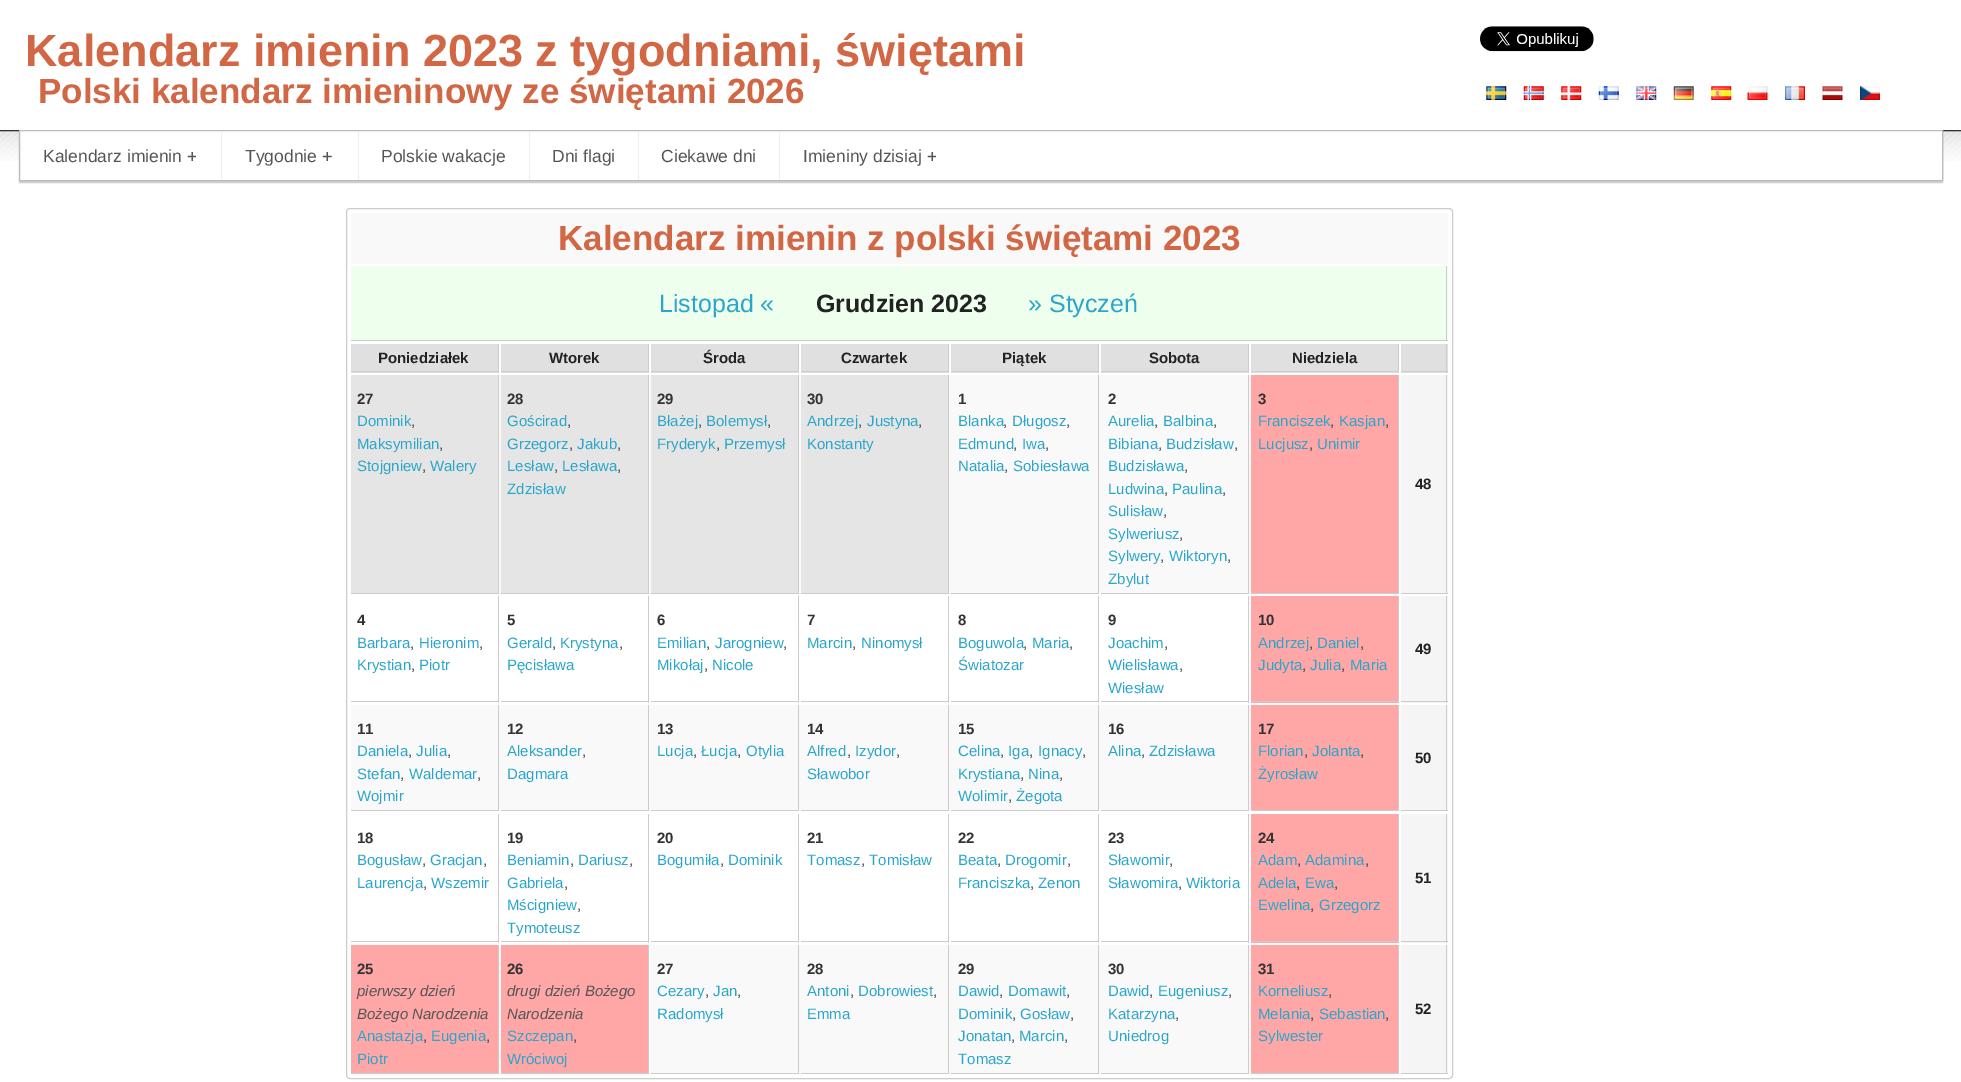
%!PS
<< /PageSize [1961 1082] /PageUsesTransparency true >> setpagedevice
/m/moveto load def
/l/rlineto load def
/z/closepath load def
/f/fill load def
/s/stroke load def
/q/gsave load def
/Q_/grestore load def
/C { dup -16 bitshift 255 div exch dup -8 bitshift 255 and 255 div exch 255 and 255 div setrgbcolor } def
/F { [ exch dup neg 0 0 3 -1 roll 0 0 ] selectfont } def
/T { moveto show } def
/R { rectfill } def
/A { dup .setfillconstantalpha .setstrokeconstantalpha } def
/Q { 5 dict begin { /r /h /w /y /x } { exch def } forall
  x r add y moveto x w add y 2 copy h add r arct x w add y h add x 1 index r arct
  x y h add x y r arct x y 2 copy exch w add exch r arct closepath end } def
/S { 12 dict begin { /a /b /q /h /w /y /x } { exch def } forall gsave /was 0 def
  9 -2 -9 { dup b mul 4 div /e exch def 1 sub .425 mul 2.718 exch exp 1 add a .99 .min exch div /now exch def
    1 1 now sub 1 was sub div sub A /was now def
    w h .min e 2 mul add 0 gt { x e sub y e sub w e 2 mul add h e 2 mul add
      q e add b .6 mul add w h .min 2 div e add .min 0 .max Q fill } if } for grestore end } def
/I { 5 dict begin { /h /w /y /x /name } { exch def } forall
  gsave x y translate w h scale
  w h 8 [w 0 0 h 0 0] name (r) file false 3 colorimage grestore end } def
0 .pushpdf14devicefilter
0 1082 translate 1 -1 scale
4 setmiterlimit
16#FFFFFF C
0 0 1961 1082 R
/LiberationSans-Bold 45 F
16#D16744 C
(Kalendarz imienin 2023 z tygodniami, świętami) 25 66 T
/LiberationSans-Bold 35 F
(Polski kalendarz imieninowy ze świętami 2026) 38 103 T
(1.rgb) 1480 26 114 26 I
(2.rgb) 1486 86 21 14 I
(3.rgb) 1523 86 21 14 I
(4.rgb) 1561 86 21 14 I
(5.rgb) 1598 86 21 14 I
(6.rgb) 1636 86 21 14 I
(7.rgb) 1673 86 21 14 I
(8.rgb) 1711 86 21 14 I
(9.rgb) 1747 86 21 14 I
(10.rgb) 1785 86 20 14 I
(11.rgb) 1822 86 21 14 I
(12.rgb) 1860 86 20 14 I
(13.rgb) 0 130 1961 31 I
16#000000 C
19 131 1924 52 0 .5 .2 S
16#FFFFFF C
19.5 130.5 m 1923 0 l 0 50 l -1923 0 l z q f Q_
16#BBBBBB C
s
/LiberationSans-Regular 17.5 F
16#555555 C
(Kalendarz imienin) 43 162 T
q
186 146 10 20 rectclip
/DejaVuSansMono-Regular 17.5 F
(+) 187 162 T
Q_
16#EEEEEE C
221 131 1 49 R
16#555555 C
(Tygodnie) 245 162 T
/DejaVuSansMono-Regular 17.5 F
(+) 322 162 T
16#EEEEEE C
358 131 1 49 R
/LiberationSans-Regular 17.5 F
16#555555 C
(Polskie wakacje) 381 162 T
16#EEEEEE C
529 131 1 49 R
16#555555 C
(Dni flagi) 552 162 T
16#EEEEEE C
638 131 1 49 R
16#555555 C
(Ciekawe dni) 661 162 T
16#EEEEEE C
779 131 1 49 R
16#555555 C
(Imieniny dzisiaj) 803 162 T
q
926 146 10 20 rectclip
/DejaVuSansMono-Regular 17.5 F
(+) 927 162 T
Q_
16#CCCCCC C
346.5 208.5 1106 870 3.5 Q s
16#F9F9F9 C
351 213 1097 51 R
/LiberationSans-Bold 35 F
16#D16744 C
(Kalendarz imienin z polski świętami 2023) 558 250 T
16#EEFFEE C
351 266 1097 74 R
16#CCCCCC C
1446 266 1 75 R
351 340 1097 1 R
/LiberationSans-Regular 25 F
16#2BA6CB C
(Listopad «) 659 312 T
/LiberationSans-Bold 25 F
16#222222 C
(Grudzien 2023) 816 312 T
/LiberationSans-Regular 25 F
16#2BA6CB C
(» Styczeń) 1028 312 T
16#E0E0E0 C
351 344 147 29 R
16#CCCCCC C
498 344 1 29 R
351 371 148 1 R
/LiberationSans-Bold 15 F
16#222222 C
(Poniedziałek) 378 363 T
16#E0E0E0 C
501 344 147 29 R
16#CCCCCC C
648 344 1 29 R
501 371 148 1 R
16#222222 C
(Wtorek) 549 363 T
16#E0E0E0 C
651 344 147 29 R
16#CCCCCC C
798 344 1 29 R
651 371 148 1 R
16#222222 C
(Środa) 703 363 T
16#E0E0E0 C
801 344 147 29 R
16#CCCCCC C
948 344 1 29 R
801 371 148 1 R
16#222222 C
(Czwartek) 841 363 T
16#E0E0E0 C
951 344 147 29 R
16#CCCCCC C
1098 344 1 29 R
951 371 148 1 R
16#222222 C
(Piątek) 1002 363 T
16#E0E0E0 C
1101 344 147 29 R
16#CCCCCC C
1248 344 1 29 R
1101 371 148 1 R
16#222222 C
(Sobota) 1149 363 T
16#E0E0E0 C
1251 344 147 29 R
16#CCCCCC C
1398 344 1 29 R
1251 371 148 1 R
16#222222 C
(Niedziela) 1292 363 T
16#E0E0E0 C
1401 344 47 29 R
16#CCCCCC C
1446 344 1 29 R
1401 371 47 1 R
16#F9F9F9 C
499 375 902 219 R
16#E5E5E5 C
351 375 147 218 R
16#CCCCCC C
498 375 1 219 R
351 593 148 1 R
16#333333 C
(27) 357 404 T
/LiberationSans-Regular 15 F
16#2BA6CB C
(Dominik) 357 426 T
16#333333 C
(,) 411 426 T
16#2BA6CB C
(Maksymilian) 357 449 T
16#333333 C
(,) 439 449 T
16#2BA6CB C
(Stojgniew) 357 471 T
16#333333 C
(,) 422 471 T
16#2BA6CB C
(Walery) 430 471 T
16#E5E5E5 C
501 375 147 218 R
16#CCCCCC C
648 375 1 219 R
501 593 148 1 R
/LiberationSans-Bold 15 F
16#333333 C
(28) 507 404 T
/LiberationSans-Regular 15 F
16#2BA6CB C
(Gościrad) 507 426 T
16#333333 C
(,) 567 426 T
16#2BA6CB C
(Grzegorz) 507 449 T
16#333333 C
(,) 569 449 T
16#2BA6CB C
(Jakub) 577 449 T
16#333333 C
(,) 617 449 T
16#2BA6CB C
(Lesław) 507 471 T
16#333333 C
(,) 554 471 T
16#2BA6CB C
(Lesława) 562 471 T
16#333333 C
(,) 617 471 T
16#2BA6CB C
(Zdzisław) 507 494 T
16#E5E5E5 C
651 375 147 218 R
16#CCCCCC C
798 375 1 219 R
651 593 148 1 R
/LiberationSans-Bold 15 F
16#333333 C
(29) 657 404 T
/LiberationSans-Regular 15 F
16#2BA6CB C
(Błażej) 657 426 T
16#333333 C
(,) 698 426 T
16#2BA6CB C
(Bolemysł) 706 426 T
16#333333 C
(,) 767 426 T
16#2BA6CB C
(Fryderyk) 657 449 T
16#333333 C
(,) 716 449 T
16#2BA6CB C
(Przemysł) 724 449 T
16#E5E5E5 C
801 375 147 218 R
16#CCCCCC C
948 375 1 219 R
801 593 148 1 R
/LiberationSans-Bold 15 F
16#333333 C
(30) 807 404 T
/LiberationSans-Regular 15 F
16#2BA6CB C
(Andrzej) 807 426 T
16#333333 C
(,) 858 426 T
16#2BA6CB C
(Justyna) 867 426 T
16#333333 C
(,) 918 426 T
16#2BA6CB C
(Konstanty) 807 449 T
16#CCCCCC C
1098 375 1 219 R
951 593 148 1 R
/LiberationSans-Bold 15 F
16#333333 C
(1) 958 404 T
/LiberationSans-Regular 15 F
16#2BA6CB C
(Blanka) 958 426 T
16#333333 C
(,) 1003 426 T
16#2BA6CB C
(Długosz) 1012 426 T
16#333333 C
(,) 1066 426 T
16#2BA6CB C
(Edmund) 958 449 T
16#333333 C
(,) 1013 449 T
16#2BA6CB C
(Iwa) 1022 449 T
16#333333 C
(,) 1045 449 T
16#2BA6CB C
(Natalia) 958 471 T
16#333333 C
(,) 1004 471 T
16#2BA6CB C
(Sobiesława) 1013 471 T
16#CCCCCC C
1248 375 1 219 R
1101 593 148 1 R
/LiberationSans-Bold 15 F
16#333333 C
(2) 1108 404 T
/LiberationSans-Regular 15 F
16#2BA6CB C
(Aurelia) 1108 426 T
16#333333 C
(,) 1154 426 T
16#2BA6CB C
(Balbina) 1163 426 T
16#333333 C
(,) 1213 426 T
16#2BA6CB C
(Bibiana) 1108 449 T
16#333333 C
(,) 1158 449 T
16#2BA6CB C
(Budzisław) 1166 449 T
16#333333 C
(,) 1234 449 T
16#2BA6CB C
(Budzisława) 1108 471 T
16#333333 C
(,) 1184 471 T
16#2BA6CB C
(Ludwina) 1108 494 T
16#333333 C
(,) 1164 494 T
16#2BA6CB C
(Paulina) 1172 494 T
16#333333 C
(,) 1222 494 T
16#2BA6CB C
(Sulisław) 1108 516 T
16#333333 C
(,) 1163 516 T
16#2BA6CB C
(Sylweriusz) 1108 539 T
16#333333 C
(,) 1179 539 T
16#2BA6CB C
(Sylwery) 1108 561 T
16#333333 C
(,) 1160 561 T
16#2BA6CB C
(Wiktoryn) 1169 561 T
16#333333 C
(,) 1227 561 T
16#2BA6CB C
(Zbylut) 1108 584 T
16#FFA6A6 C
1251 375 147 218 R
16#CCCCCC C
1398 375 1 219 R
1251 593 148 1 R
/LiberationSans-Bold 15 F
16#333333 C
(3) 1258 404 T
/LiberationSans-Regular 15 F
16#2BA6CB C
(Franciszek) 1258 426 T
16#333333 C
(,) 1330 426 T
16#2BA6CB C
(Kasjan) 1339 426 T
16#333333 C
(,) 1385 426 T
16#2BA6CB C
(Lucjusz) 1258 449 T
16#333333 C
(,) 1309 449 T
16#2BA6CB C
(Unimir) 1317 449 T
16#F5F5F5 C
1401 375 47 218 R
16#CCCCCC C
1446 375 1 219 R
1401 593 47 1 R
/LiberationSans-Bold 15 F
16#222222 C
(48) 1415 489 T
16#CCCCCC C
498 596 1 107 R
351 701 148 1 R
16#333333 C
(4) 357 625 T
/LiberationSans-Regular 15 F
16#2BA6CB C
(Barbara) 357 648 T
16#333333 C
(,) 410 648 T
16#2BA6CB C
(Hieronim) 419 648 T
16#333333 C
(,) 479 648 T
16#2BA6CB C
(Krystian) 357 670 T
16#333333 C
(,) 411 670 T
16#2BA6CB C
(Piotr) 419 670 T
16#CCCCCC C
648 596 1 107 R
501 701 148 1 R
/LiberationSans-Bold 15 F
16#333333 C
(5) 507 625 T
/LiberationSans-Regular 15 F
16#2BA6CB C
(Gerald) 507 648 T
16#333333 C
(,) 552 648 T
16#2BA6CB C
(Krystyna) 560 648 T
16#333333 C
(,) 619 648 T
16#2BA6CB C
(Pęcisława) 507 670 T
16#CCCCCC C
798 596 1 107 R
651 701 148 1 R
/LiberationSans-Bold 15 F
16#333333 C
(6) 657 625 T
/LiberationSans-Regular 15 F
16#2BA6CB C
(Emilian) 657 648 T
16#333333 C
(,) 706 648 T
16#2BA6CB C
(Jarogniew) 715 648 T
16#333333 C
(,) 783 648 T
16#2BA6CB C
(Mikołaj) 657 670 T
16#333333 C
(,) 704 670 T
16#2BA6CB C
(Nicole) 712 670 T
16#CCCCCC C
948 596 1 107 R
801 701 148 1 R
/LiberationSans-Bold 15 F
16#333333 C
(7) 807 625 T
/LiberationSans-Regular 15 F
16#2BA6CB C
(Marcin) 807 648 T
16#333333 C
(,) 852 648 T
16#2BA6CB C
(Ninomysł) 861 648 T
16#CCCCCC C
1098 596 1 107 R
951 701 148 1 R
/LiberationSans-Bold 15 F
16#333333 C
(8) 958 625 T
/LiberationSans-Regular 15 F
16#2BA6CB C
(Boguwola) 958 648 T
16#333333 C
(,) 1023 648 T
16#2BA6CB C
(Maria) 1032 648 T
16#333333 C
(,) 1069 648 T
16#2BA6CB C
(Światozar) 958 670 T
16#CCCCCC C
1248 596 1 107 R
1101 701 148 1 R
/LiberationSans-Bold 15 F
16#333333 C
(9) 1108 625 T
/LiberationSans-Regular 15 F
16#2BA6CB C
(Joachim) 1108 648 T
16#333333 C
(,) 1164 648 T
16#2BA6CB C
(Wielisława) 1108 670 T
16#333333 C
(,) 1179 670 T
16#2BA6CB C
(Wiesław) 1108 693 T
16#FFA6A6 C
1251 596 147 107 R
16#CCCCCC C
1398 596 1 107 R
1251 701 148 1 R
/LiberationSans-Bold 15 F
16#333333 C
(10) 1258 625 T
/LiberationSans-Regular 15 F
16#2BA6CB C
(Andrzej) 1258 648 T
16#333333 C
(,) 1309 648 T
16#2BA6CB C
(Daniel) 1317 648 T
16#333333 C
(,) 1360 648 T
16#2BA6CB C
(Judyta) 1258 670 T
16#333333 C
(,) 1302 670 T
16#2BA6CB C
(Julia) 1310 670 T
16#333333 C
(,) 1341 670 T
16#2BA6CB C
(Maria) 1350 670 T
16#F5F5F5 C
1401 596 47 107 R
16#CCCCCC C
1446 596 1 107 R
1401 701 47 1 R
/LiberationSans-Bold 15 F
16#222222 C
(49) 1415 654 T
16#F9F9F9 C
351 705 1050 106 R
16#CCCCCC C
498 705 1 106 R
351 810 148 1 R
16#333333 C
(11) 357 734 T
/LiberationSans-Regular 15 F
16#2BA6CB C
(Daniela) 357 756 T
16#333333 C
(,) 408 756 T
16#2BA6CB C
(Julia) 416 756 T
16#333333 C
(,) 447 756 T
16#2BA6CB C
(Stefan) 357 779 T
16#333333 C
(,) 400 779 T
16#2BA6CB C
(Waldemar) 409 779 T
16#333333 C
(,) 477 779 T
16#2BA6CB C
(Wojmir) 357 801 T
16#CCCCCC C
648 705 1 106 R
501 810 148 1 R
/LiberationSans-Bold 15 F
16#333333 C
(12) 507 734 T
/LiberationSans-Regular 15 F
16#2BA6CB C
(Aleksander) 507 756 T
16#333333 C
(,) 582 756 T
16#2BA6CB C
(Dagmara) 507 779 T
16#CCCCCC C
798 705 1 106 R
651 810 148 1 R
/LiberationSans-Bold 15 F
16#333333 C
(13) 657 734 T
/LiberationSans-Regular 15 F
16#2BA6CB C
(Lucja) 657 756 T
16#333333 C
(,) 693 756 T
16#2BA6CB C
(Łucja) 701 756 T
16#333333 C
(,) 737 756 T
16#2BA6CB C
(Otylia) 746 756 T
16#CCCCCC C
948 705 1 106 R
801 810 148 1 R
/LiberationSans-Bold 15 F
16#333333 C
(14) 807 734 T
/LiberationSans-Regular 15 F
16#2BA6CB C
(Alfred) 807 756 T
16#333333 C
(,) 847 756 T
16#2BA6CB C
(Izydor) 855 756 T
16#333333 C
(,) 896 756 T
16#2BA6CB C
(Sławobor) 807 779 T
16#CCCCCC C
1098 705 1 106 R
951 810 148 1 R
/LiberationSans-Bold 15 F
16#333333 C
(15) 958 734 T
/LiberationSans-Regular 15 F
16#2BA6CB C
(Celina) 958 756 T
16#333333 C
(,) 1000 756 T
16#2BA6CB C
(Iga) 1008 756 T
16#333333 C
(,) 1029 756 T
16#2BA6CB C
(Ignacy) 1038 756 T
16#333333 C
(,) 1082 756 T
16#2BA6CB C
(Krystiana) 958 779 T
16#333333 C
(,) 1020 779 T
16#2BA6CB C
(Nina) 1028 779 T
16#333333 C
(,) 1059 779 T
16#2BA6CB C
(Wolimir) 958 801 T
16#333333 C
(,) 1008 801 T
16#2BA6CB C
(Żegota) 1016 801 T
16#CCCCCC C
1248 705 1 106 R
1101 810 148 1 R
/LiberationSans-Bold 15 F
16#333333 C
(16) 1108 734 T
/LiberationSans-Regular 15 F
16#2BA6CB C
(Alina) 1108 756 T
16#333333 C
(,) 1141 756 T
16#2BA6CB C
(Zdzisława) 1149 756 T
16#FFA6A6 C
1251 705 147 105 R
16#CCCCCC C
1398 705 1 106 R
1251 810 148 1 R
/LiberationSans-Bold 15 F
16#333333 C
(17) 1258 734 T
/LiberationSans-Regular 15 F
16#2BA6CB C
(Florian) 1258 756 T
16#333333 C
(,) 1304 756 T
16#2BA6CB C
(Jolanta) 1312 756 T
16#333333 C
(,) 1360 756 T
16#2BA6CB C
(Żyrosław) 1258 779 T
16#F5F5F5 C
1401 705 47 105 R
16#CCCCCC C
1446 705 1 106 R
1401 810 47 1 R
/LiberationSans-Bold 15 F
16#222222 C
(50) 1415 763 T
16#CCCCCC C
498 814 1 129 R
351 941 148 1 R
16#333333 C
(18) 357 843 T
/LiberationSans-Regular 15 F
16#2BA6CB C
(Bogusław) 357 865 T
16#333333 C
(,) 422 865 T
16#2BA6CB C
(Gracjan) 430 865 T
16#333333 C
(,) 483 865 T
16#2BA6CB C
(Laurencja) 357 888 T
16#333333 C
(,) 423 888 T
16#2BA6CB C
(Wszemir) 431 888 T
16#CCCCCC C
648 814 1 129 R
501 941 148 1 R
/LiberationSans-Bold 15 F
16#333333 C
(19) 507 843 T
/LiberationSans-Regular 15 F
16#2BA6CB C
(Beniamin) 507 865 T
16#333333 C
(,) 570 865 T
16#2BA6CB C
(Dariusz) 578 865 T
16#333333 C
(,) 629 865 T
16#2BA6CB C
(Gabriela) 507 888 T
16#333333 C
(,) 564 888 T
16#2BA6CB C
(Mścigniew) 507 910 T
16#333333 C
(,) 577 910 T
16#2BA6CB C
(Tymoteusz) 507 933 T
16#CCCCCC C
798 814 1 129 R
651 941 148 1 R
/LiberationSans-Bold 15 F
16#333333 C
(20) 657 843 T
/LiberationSans-Regular 15 F
16#2BA6CB C
(Bogumiła) 657 865 T
16#333333 C
(,) 720 865 T
16#2BA6CB C
(Dominik) 728 865 T
16#CCCCCC C
948 814 1 129 R
801 941 148 1 R
/LiberationSans-Bold 15 F
16#333333 C
(21) 807 843 T
/LiberationSans-Regular 15 F
16#2BA6CB C
(Tomasz) 807 865 T
16#333333 C
(,) 861 865 T
16#2BA6CB C
(Tomisław) 869 865 T
16#CCCCCC C
1098 814 1 129 R
951 941 148 1 R
/LiberationSans-Bold 15 F
16#333333 C
(22) 958 843 T
/LiberationSans-Regular 15 F
16#2BA6CB C
(Beata) 958 865 T
16#333333 C
(,) 997 865 T
16#2BA6CB C
(Drogomir) 1005 865 T
16#333333 C
(,) 1067 865 T
16#2BA6CB C
(Franciszka) 958 888 T
16#333333 C
(,) 1030 888 T
16#2BA6CB C
(Zenon) 1038 888 T
16#CCCCCC C
1248 814 1 129 R
1101 941 148 1 R
/LiberationSans-Bold 15 F
16#333333 C
(23) 1108 843 T
/LiberationSans-Regular 15 F
16#2BA6CB C
(Sławomir) 1108 865 T
16#333333 C
(,) 1169 865 T
16#2BA6CB C
(Sławomira) 1108 888 T
16#333333 C
(,) 1178 888 T
16#2BA6CB C
(Wiktoria) 1186 888 T
16#FFA6A6 C
1251 814 147 129 R
16#CCCCCC C
1398 814 1 129 R
1251 941 148 1 R
/LiberationSans-Bold 15 F
16#333333 C
(24) 1258 843 T
/LiberationSans-Regular 15 F
16#2BA6CB C
(Adam) 1258 865 T
16#333333 C
(,) 1297 865 T
16#2BA6CB C
(Adamina) 1305 865 T
16#333333 C
(,) 1365 865 T
16#2BA6CB C
(Adela) 1258 888 T
16#333333 C
(,) 1296 888 T
16#2BA6CB C
(Ewa) 1305 888 T
16#333333 C
(,) 1334 888 T
16#2BA6CB C
(Ewelina) 1258 910 T
16#333333 C
(,) 1310 910 T
16#2BA6CB C
(Grzegorz) 1319 910 T
16#F5F5F5 C
1401 814 47 129 R
16#CCCCCC C
1446 814 1 129 R
1401 941 47 1 R
/LiberationSans-Bold 15 F
16#222222 C
(51) 1415 883 T
16#F9F9F9 C
499 945 902 129 R
16#FFA6A6 C
351 945 147 128 R
16#CCCCCC C
498 945 1 129 R
351 1073 148 1 R
16#333333 C
(25) 357 974 T
/LiberationSans-Italic 15 F
16#555555 C
(pierwszy dzień) 357 996 T
(Bożego Narodzenia) 357 1019 T
/LiberationSans-Regular 15 F
16#2BA6CB C
(Anastazja) 357 1041 T
16#333333 C
(,) 423 1041 T
16#2BA6CB C
(Eugenia) 431 1041 T
16#333333 C
(,) 486 1041 T
16#2BA6CB C
(Piotr) 357 1064 T
16#FFA6A6 C
501 945 147 128 R
16#CCCCCC C
648 945 1 129 R
501 1073 148 1 R
/LiberationSans-Bold 15 F
16#333333 C
(26) 507 974 T
/LiberationSans-Italic 15 F
16#555555 C
(drugi dzień Bożego) 507 996 T
(Narodzenia) 507 1019 T
/LiberationSans-Regular 15 F
16#2BA6CB C
(Szczepan) 507 1041 T
16#333333 C
(,) 573 1041 T
16#2BA6CB C
(Wróciwoj) 507 1064 T
16#CCCCCC C
798 945 1 129 R
651 1073 148 1 R
/LiberationSans-Bold 15 F
16#333333 C
(27) 657 974 T
/LiberationSans-Regular 15 F
16#2BA6CB C
(Cezary) 657 996 T
16#333333 C
(,) 705 996 T
16#2BA6CB C
(Jan) 713 996 T
16#333333 C
(,) 737 996 T
16#2BA6CB C
(Radomysł) 657 1019 T
16#CCCCCC C
948 945 1 129 R
801 1073 148 1 R
/LiberationSans-Bold 15 F
16#333333 C
(28) 807 974 T
/LiberationSans-Regular 15 F
16#2BA6CB C
(Antoni) 807 996 T
16#333333 C
(,) 850 996 T
16#2BA6CB C
(Dobrowiest) 858 996 T
16#333333 C
(,) 933 996 T
16#2BA6CB C
(Emma) 807 1019 T
16#CCCCCC C
1098 945 1 129 R
951 1073 148 1 R
/LiberationSans-Bold 15 F
16#333333 C
(29) 958 974 T
/LiberationSans-Regular 15 F
16#2BA6CB C
(Dawid) 958 996 T
16#333333 C
(,) 999 996 T
16#2BA6CB C
(Domawit) 1008 996 T
16#333333 C
(,) 1066 996 T
16#2BA6CB C
(Dominik) 958 1019 T
16#333333 C
(,) 1012 1019 T
16#2BA6CB C
(Gosław) 1020 1019 T
16#333333 C
(,) 1070 1019 T
16#2BA6CB C
(Jonatan) 958 1041 T
16#333333 C
(,) 1011 1041 T
16#2BA6CB C
(Marcin) 1019 1041 T
16#333333 C
(,) 1064 1041 T
16#2BA6CB C
(Tomasz) 958 1064 T
16#CCCCCC C
1248 945 1 129 R
1101 1073 148 1 R
/LiberationSans-Bold 15 F
16#333333 C
(30) 1108 974 T
/LiberationSans-Regular 15 F
16#2BA6CB C
(Dawid) 1108 996 T
16#333333 C
(,) 1149 996 T
16#2BA6CB C
(Eugeniusz) 1158 996 T
16#333333 C
(,) 1228 996 T
16#2BA6CB C
(Katarzyna) 1108 1019 T
16#333333 C
(,) 1175 1019 T
16#2BA6CB C
(Uniedrog) 1108 1041 T
16#FFA6A6 C
1251 945 147 128 R
16#CCCCCC C
1398 945 1 129 R
1251 1073 148 1 R
/LiberationSans-Bold 15 F
16#333333 C
(31) 1258 974 T
/LiberationSans-Regular 15 F
16#2BA6CB C
(Korneliusz) 1258 996 T
16#333333 C
(,) 1328 996 T
16#2BA6CB C
(Melania) 1258 1019 T
16#333333 C
(,) 1310 1019 T
16#2BA6CB C
(Sebastian) 1319 1019 T
16#333333 C
(,) 1385 1019 T
16#2BA6CB C
(Sylwester) 1258 1041 T
16#F5F5F5 C
1401 945 47 128 R
16#CCCCCC C
1446 945 1 129 R
1401 1073 47 1 R
/LiberationSans-Bold 15 F
16#222222 C
(52) 1415 1014 T
.poppdf14devicefilter showpage
